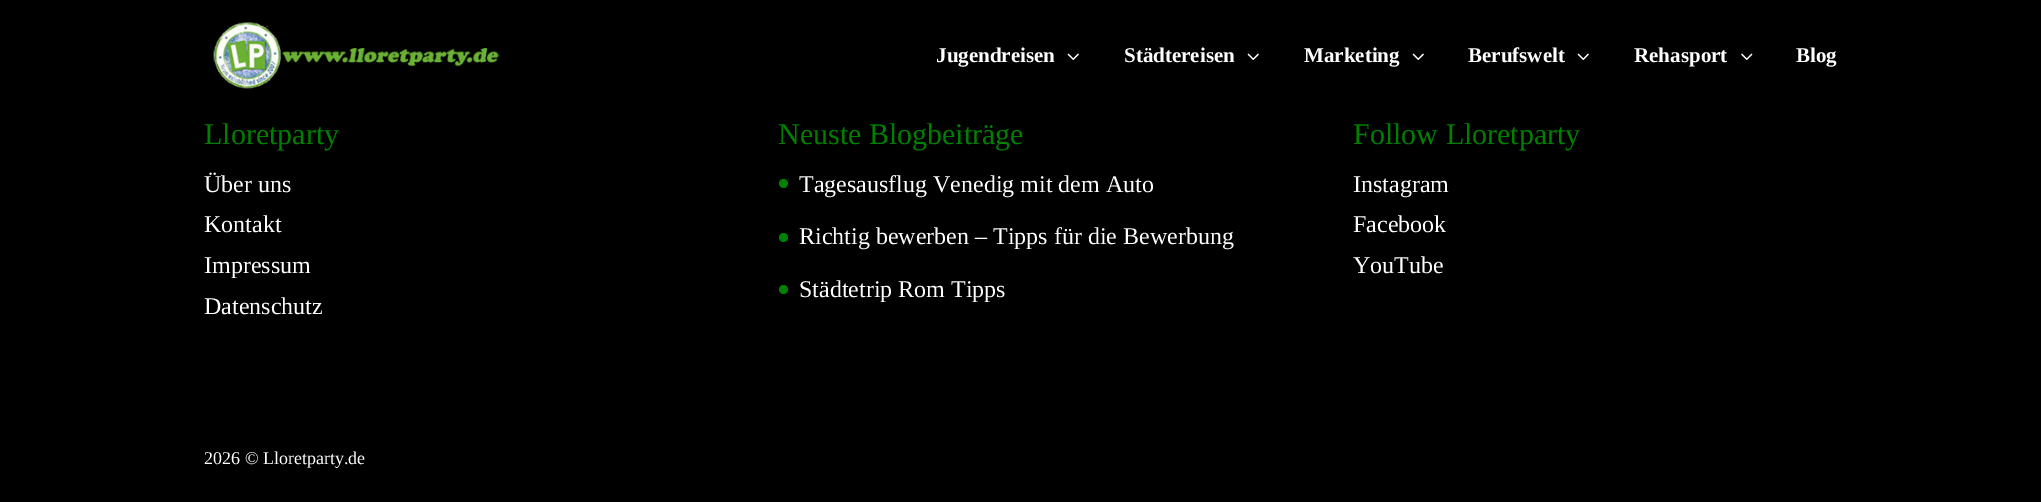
%!PS
<< /PageSize [2041 502] >> setpagedevice
/f/fill load def
/C { dup -16 bitshift 255 div exch dup -8 bitshift 255 and 255 div exch 255 and 255 div setrgbcolor } def
/F { [ exch dup neg 0 0 3 -1 roll 0 0 ] selectfont } def
/T { moveto show } def
/R { rectfill } def
/O { newpath 0 360 arc closepath } def
/I { 5 dict begin { /h /w /y /x /name } { exch def } forall
  gsave x y translate w h scale
  w h 8 [w 0 0 h 0 0] name (r) file false 3 colorimage grestore end } def
0 502 translate 1 -1 scale
4 setmiterlimit
16#000000 C
0 0 2041 502 R
(1.rgb) 213 22 287 67 I
/LiberationSerif-Bold 21 F
16#FFFFFF C
(Jugendreisen) 936 62 T
(2.rgb) 1067 53 12 7 I
(Städtereisen) 1124 62 T
(2.rgb) 1247 53 12 7 I
(Marketing) 1304 62 T
(2.rgb) 1412 53 12 7 I
(Berufswelt) 1468 62 T
(2.rgb) 1577 53 12 7 I
(Rehasport) 1634 62 T
(3.rgb) 1741 53 12 7 I
(Blog) 1796 62 T
/LiberationSerif-Regular 30 F
16#008000 C
(Lloretparty) 204 144 T
/LiberationSerif-Regular 24 F
16#FFFFFF C
(Über uns) 204 192 T
(Kontakt) 204 232 T
(Impressum) 204 273 T
(Datenschutz) 204 314 T
/LiberationSerif-Regular 30 F
16#008000 C
(Neuste Blogbeiträge) 778 144 T
783.5 183.5 4.5 O f
/LiberationSerif-Regular 24 F
16#FFFFFF C
(Tagesausflug Venedig mit dem Auto) 799 192 T
16#008000 C
783.5 237.5 4.5 O f
16#FFFFFF C
(Richtig bewerben – Tipps für die Bewerbung) 799 244 T
16#008000 C
783.5 289.5 4.5 O f
16#FFFFFF C
(Städtetrip Rom Tipps) 799 297 T
/LiberationSerif-Regular 30 F
16#008000 C
(Follow Lloretparty) 1353 144 T
/LiberationSerif-Regular 24 F
16#FFFFFF C
(Instagram) 1353 192 T
(Facebook) 1353 232 T
(YouTube) 1353 273 T
/LiberationSerif-Regular 18 F
(2026 © Lloretparty.de) 204 464 T
showpage
